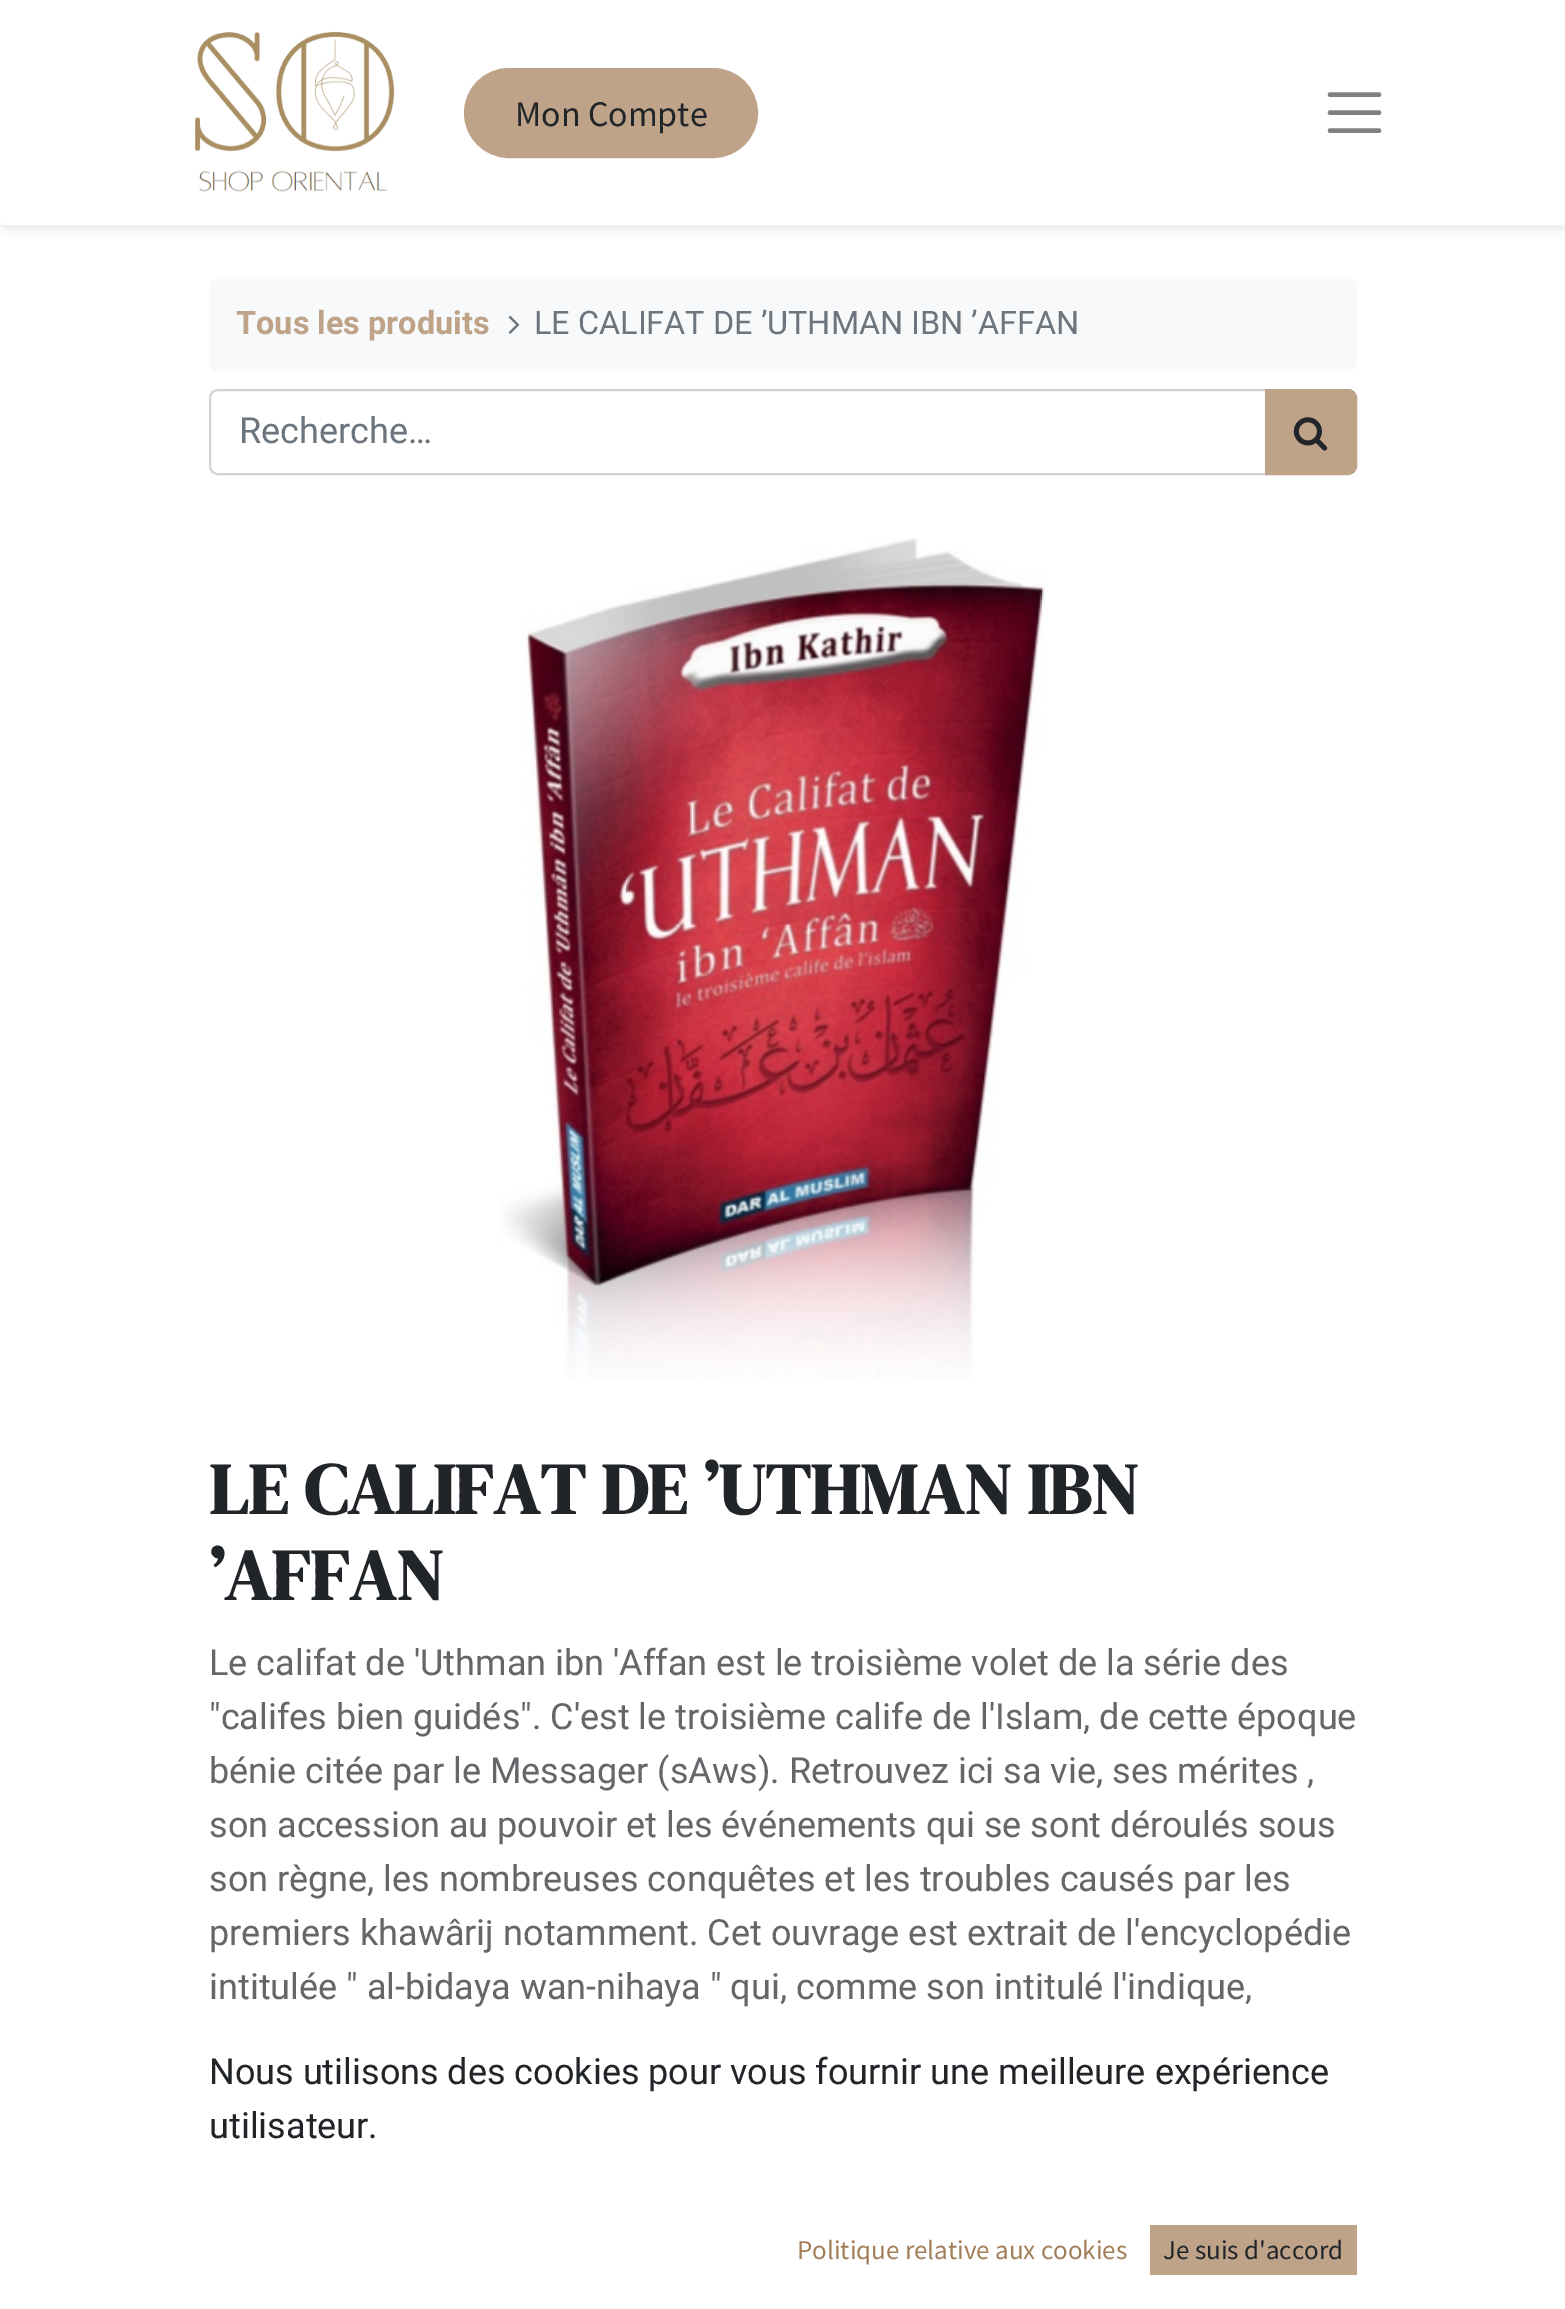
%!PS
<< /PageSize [1565 2309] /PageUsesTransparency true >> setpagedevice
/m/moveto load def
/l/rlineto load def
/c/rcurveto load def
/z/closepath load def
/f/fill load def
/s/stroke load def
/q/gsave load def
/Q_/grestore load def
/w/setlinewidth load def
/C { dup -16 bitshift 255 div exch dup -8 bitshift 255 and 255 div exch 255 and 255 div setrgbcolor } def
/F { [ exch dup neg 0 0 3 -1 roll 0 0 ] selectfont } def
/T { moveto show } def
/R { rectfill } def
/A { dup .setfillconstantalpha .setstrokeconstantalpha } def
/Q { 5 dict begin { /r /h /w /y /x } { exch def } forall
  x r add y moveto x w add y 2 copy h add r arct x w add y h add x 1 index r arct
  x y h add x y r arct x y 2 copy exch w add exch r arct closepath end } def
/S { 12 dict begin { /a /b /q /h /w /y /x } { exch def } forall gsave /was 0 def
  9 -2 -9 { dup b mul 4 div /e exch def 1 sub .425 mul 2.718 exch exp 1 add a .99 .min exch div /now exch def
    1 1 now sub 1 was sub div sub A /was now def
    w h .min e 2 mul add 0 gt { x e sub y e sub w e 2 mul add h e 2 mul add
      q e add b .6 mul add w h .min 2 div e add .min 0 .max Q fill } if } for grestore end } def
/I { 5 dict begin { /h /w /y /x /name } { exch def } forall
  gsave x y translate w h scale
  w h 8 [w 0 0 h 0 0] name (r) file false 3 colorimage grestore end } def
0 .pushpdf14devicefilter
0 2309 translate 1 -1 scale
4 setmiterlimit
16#FFFFFF C
0 0 1565 2309 R
16#000000 C
0 5 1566 225 5 4.5 .07 S
16#FFFFFF C
0 0 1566 225 5 Q f
(1.rgb) 195 31 200 161 I
16#BEA388 C
465 69 292 88 44 Q q f Q_
2 w
s
/SourceSansPro-Regular 36 F
16#212529 C
(Mon Compte) 515 126 T
16#808080 C
4.5 w
1 setlinecap
1330 94.5 m 49 0 l 1330 112.5 m 49 0 l 1330 130.5 m 49 0 l s
16#F8F9FA C
209 279 1148 92 9 Q f
/Heebo-Bold 32.4 F
16#BEA388 C
(Tous les produits) 236 334 T
(2.rgb) 508 315 12 19 I
/Heebo-Regular 32.4 F
16#6C757D C
(LE CALIFAT DE ’UTHMAN IBN ’AFFAN) 534 334 T
16#CED4DA C
2 w
0 setlinecap
218 390 m 1048 0 l 0 84 l -1048 0 l -4.5 0 -8 -3.5 -8 -8 c 0 -68 l 0 -4.5 3.5 -8 8 -8 c z s
/Heebo-Regular 36 F
16#6C757D C
(Recherche…) 239 443 T
16#BEA388 C
1266 390 m 82 0 l 4.5 0 8 3.5 8 8 c 0 68 l 0 4.5 -3.5 8 -8 8 c -82 0 l z q f Q_
s
(3.rgb) 1293 417 35 34 I
(4.rgb) 500 538 545 840 I
/DMSerifDisplay-Bold 72 F
16#212529 C
(LE CALIFAT DE ’UTHMAN IBN) 209 1514 T
(’AFFAN) 209 1600 T
/Heebo-Regular 36 F
16#646669 C
(Le califat de 'Uthman ibn 'Affan est le troisième volet de la série des) 209 1675 T
("califes bien guidés". C'est le troisième calife de l'Islam, de cette époque) 209 1729 T
(bénie citée par le Messager \(sAws\). Retrouvez ici sa vie, ses mérites ,) 209 1783 T
(son accession au pouvoir et les événements qui se sont déroulés sous) 209 1837 T
(son règne, les nombreuses conquêtes et les troubles causés par les) 209 1891 T
(premiers khawârij notamment. Cet ouvrage est extrait de l'encyclopédie) 209 1945 T
(intitulée " al-bidaya wan-nihaya " qui, comme son intitulé l'indique,) 209 1999 T
16#212529 C
(Nous utilisons des cookies pour vous fournir une meilleure expérience) 209 2084 T
(utilisateur.) 209 2138 T
/SourceSansPro-Regular 27 F
16#A17D58 C
(Politique relative aux cookies) 797 2259 T
16#BEA388 C
1150 2225 207 50 R
16#212529 C
(Je suis d'accord) 1163 2259 T
.poppdf14devicefilter showpage
